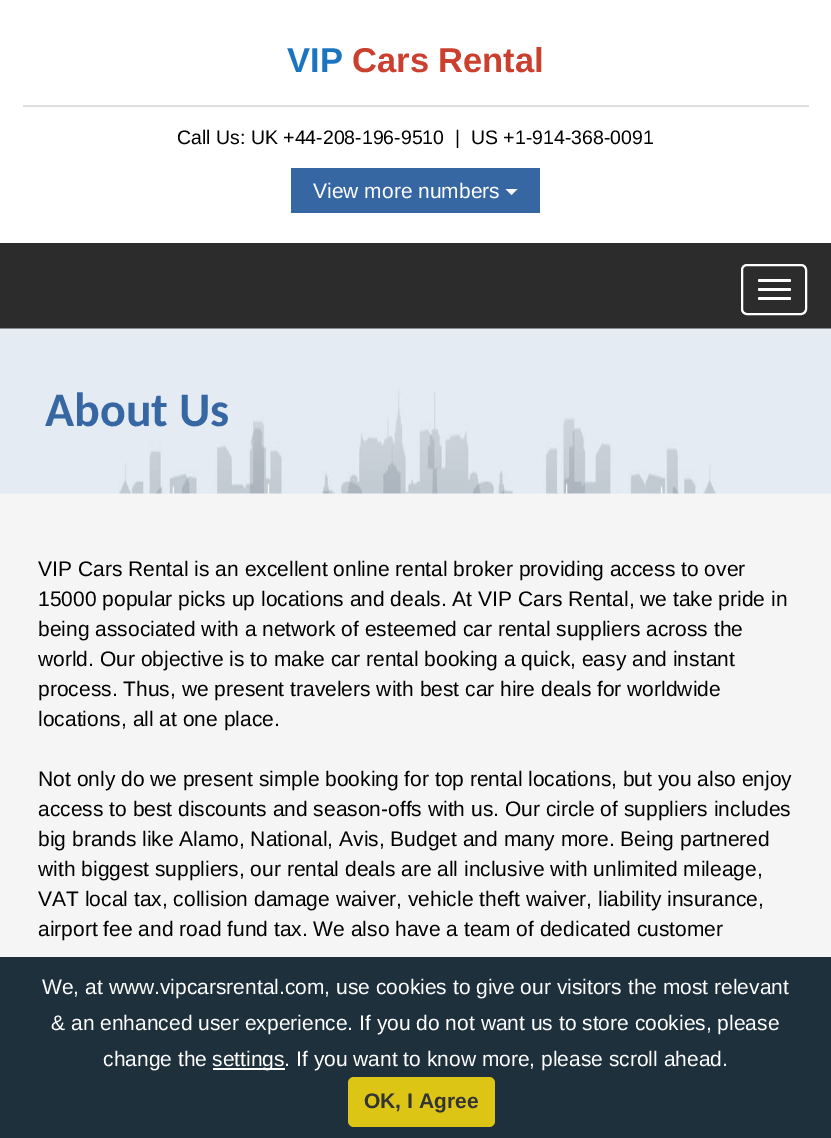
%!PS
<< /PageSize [831 1138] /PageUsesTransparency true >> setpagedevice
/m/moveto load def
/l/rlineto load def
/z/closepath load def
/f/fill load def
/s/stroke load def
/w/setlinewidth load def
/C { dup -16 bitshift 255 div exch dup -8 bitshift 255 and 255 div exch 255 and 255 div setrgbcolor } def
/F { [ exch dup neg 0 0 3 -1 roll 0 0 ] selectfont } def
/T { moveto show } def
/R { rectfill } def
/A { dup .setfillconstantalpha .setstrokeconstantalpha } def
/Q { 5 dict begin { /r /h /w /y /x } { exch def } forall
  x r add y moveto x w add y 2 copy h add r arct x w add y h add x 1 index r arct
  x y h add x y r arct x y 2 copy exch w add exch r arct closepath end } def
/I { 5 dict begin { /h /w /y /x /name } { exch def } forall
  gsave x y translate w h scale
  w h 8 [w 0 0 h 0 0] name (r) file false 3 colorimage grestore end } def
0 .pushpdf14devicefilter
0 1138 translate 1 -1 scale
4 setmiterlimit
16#F5F5F5 C
0 0 831 1138 R
16#FFFFFF C
0 0 831 243 R
/LiberationSans-Bold 34.5 F
16#1B74BF C
(VIP) 287 72 T
16#CB3F2E C
(Cars Rental) 352 72 T
16#DEDEDE C
23 105 786 2 R
/LiberationSans-Regular 19.5 F
16#000000 C
(Call Us: UK +44-208-196-9510) 177 144 T
(|  US +1-914-368-0091) 455 144 T
16#3667A3 C
291 168 249 45 R
/LiberationSans-Regular 21 F
16#FFFFFF C
(View more numbers) 313 198 T
505.5 189 m 12 0 l -6 6 l z f
16#2C2C2C C
0 243 831 86 R
16#FFFFFF C
2 w
742 265 64 49 5 Q s
758 279 33 3 1.5 Q f
758 288 33 3 1.5 Q f
758 297 33 3 1.5 Q f
(1.rgb) 0 328 831 166 I
/Carlito-Bold 48 F
16#3667A3 C
(About Us) 45 426 T
/LiberationSans-Regular 21 F
16#000000 C
(VIP Cars Rental is an excellent online rental broker providing access to over) 38 576 T
(15000 popular picks up locations and deals. At VIP Cars Rental, we take pride in) 38 606 T
(being associated with a network of esteemed car rental suppliers across the) 38 636 T
(world. Our objective is to make car rental booking a quick, easy and instant) 38 666 T
(process. Thus, we present travelers with best car hire deals for worldwide) 38 696 T
(locations, all at one place.) 38 726 T
(Not only do we present simple booking for top rental locations, but you also enjoy) 38 786 T
(access to best discounts and season-offs with us. Our circle of suppliers includes) 38 816 T
(big brands like Alamo, National, Avis, Budget and many more. Being partnered) 38 846 T
(with biggest suppliers, our rental deals are all inclusive with unlimited mileage,) 38 876 T
(VAT local tax, collision damage waiver, vehicle theft waiver, liability insurance,) 38 906 T
(airport fee and road fund tax. We also have a team of dedicated customer) 38 936 T
0.9 A
16#081B29 C
0 957 831 181 R
1 A
16#FFFFFF C
(We, at www.vipcarsrental.com, use cookies to give our visitors the most relevant) 42 994 T
(& an enhanced user experience. If you do not want us to store cookies, please) 51 1030 T
(change the) 103 1066 T
213 1068 72 2 R
(settings. If you want to know more, please scroll ahead.) 212 1066 T
16#DDC515 C
348 1077 147 50 6 Q f
/LiberationSans-Bold 21 F
16#333333 C
(OK, I Agree) 364 1108 T
.poppdf14devicefilter showpage
